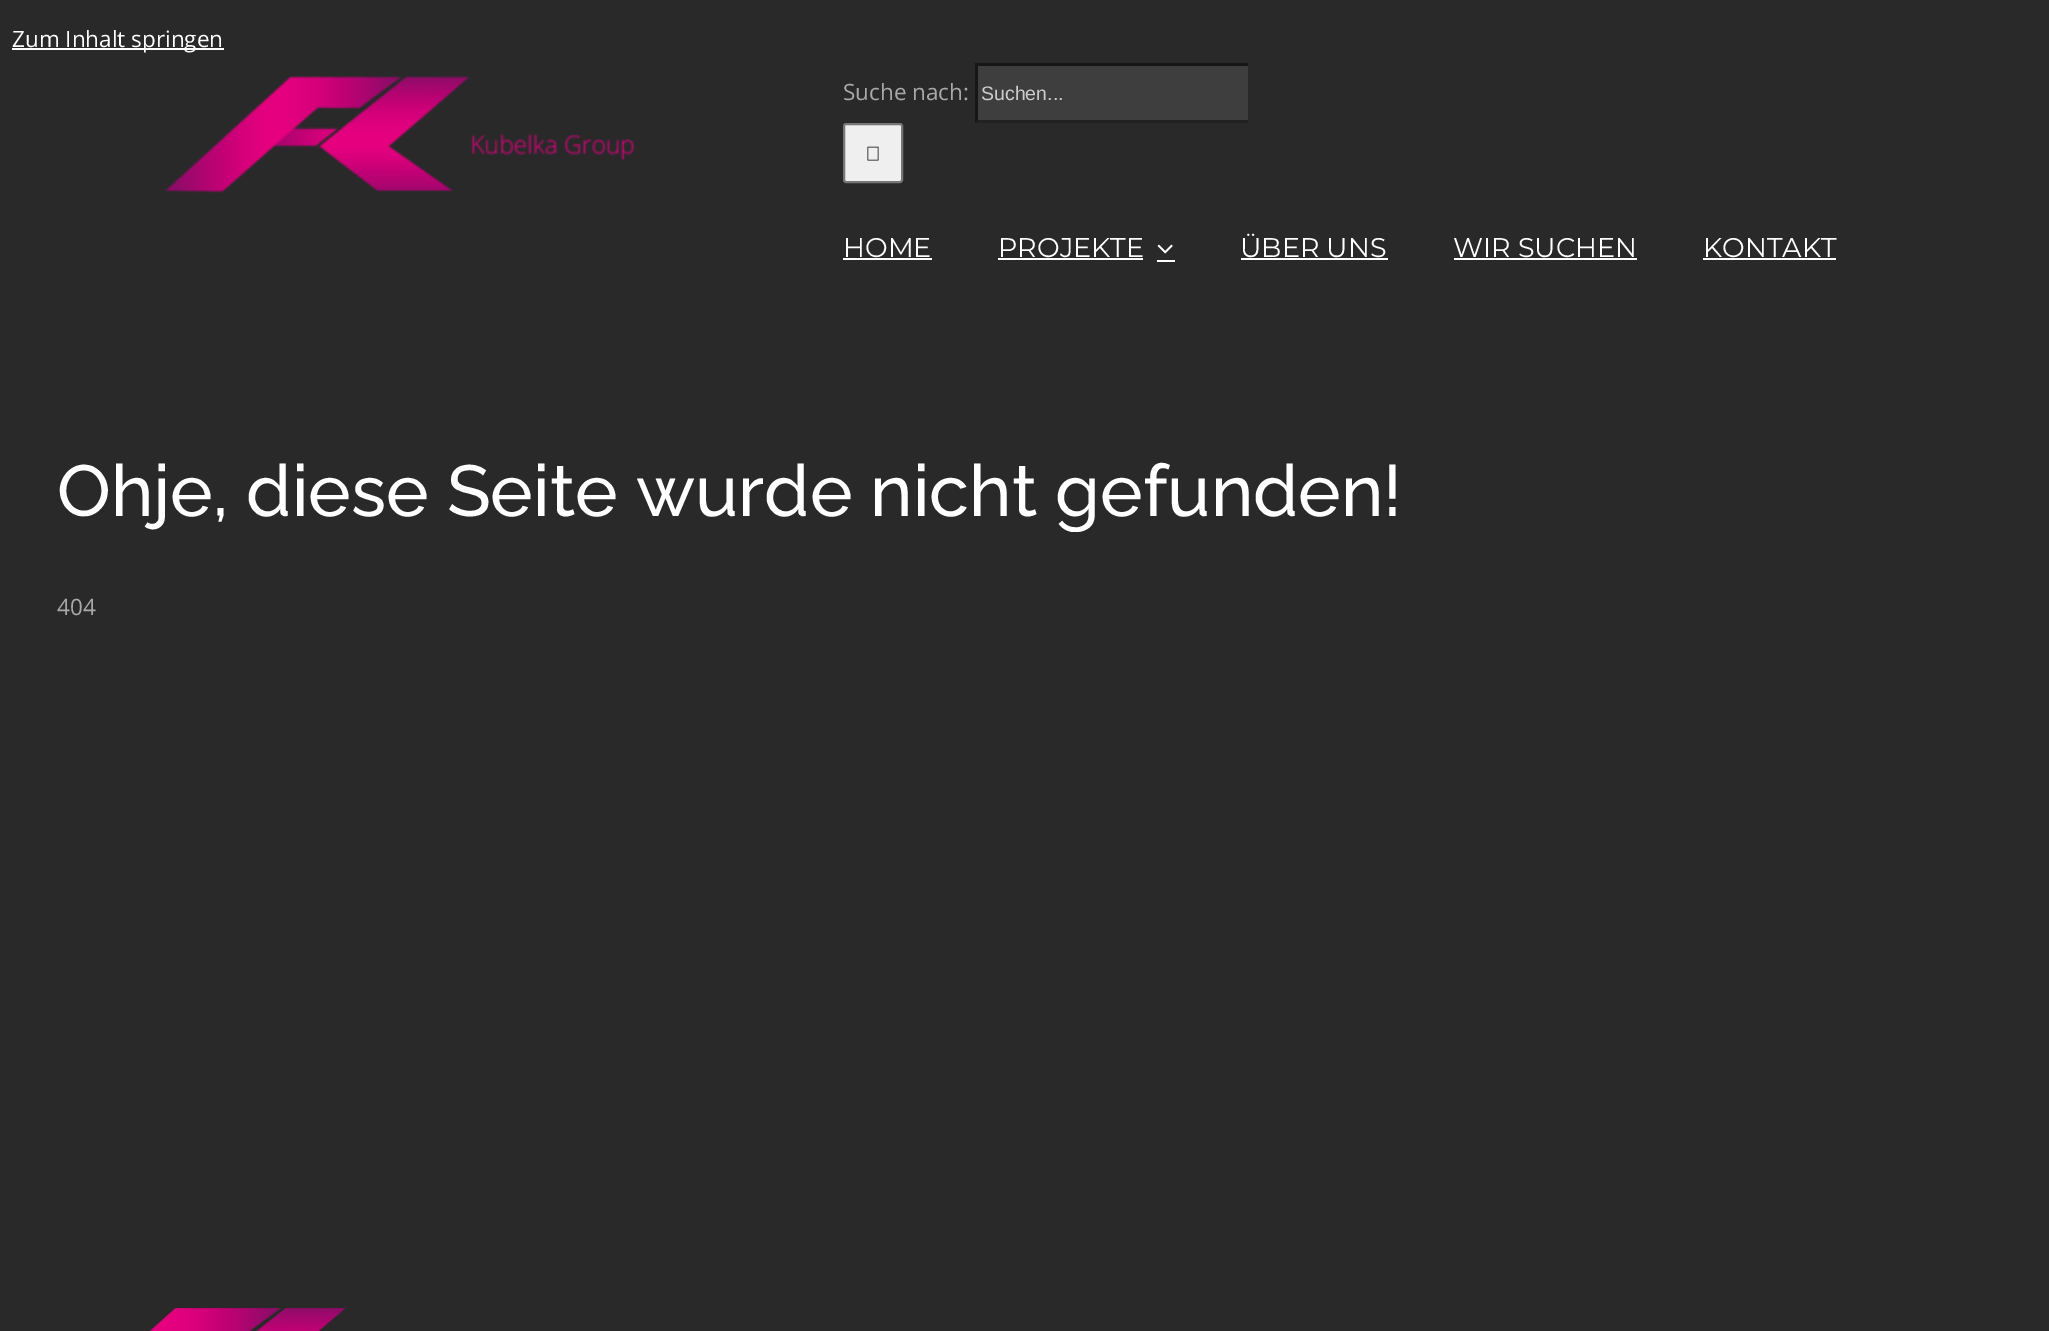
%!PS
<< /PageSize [2049 1331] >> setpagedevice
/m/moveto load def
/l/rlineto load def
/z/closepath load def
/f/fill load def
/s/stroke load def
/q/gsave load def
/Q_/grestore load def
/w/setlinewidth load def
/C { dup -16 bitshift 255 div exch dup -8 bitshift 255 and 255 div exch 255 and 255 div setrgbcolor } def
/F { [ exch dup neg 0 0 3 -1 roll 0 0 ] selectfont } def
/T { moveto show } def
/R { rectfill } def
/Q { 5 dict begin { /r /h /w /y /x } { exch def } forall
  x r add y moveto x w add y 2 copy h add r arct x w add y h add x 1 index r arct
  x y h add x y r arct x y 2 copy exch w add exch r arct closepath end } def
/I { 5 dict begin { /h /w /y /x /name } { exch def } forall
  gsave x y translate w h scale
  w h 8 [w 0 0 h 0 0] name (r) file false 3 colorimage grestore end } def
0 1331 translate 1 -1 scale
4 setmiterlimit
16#29292A C
0 0 2049 1331 R
16#FFFFFF C
12 48 212 2 R
/OpenSans-Regular 22.5 F
(Zum Inhalt springen) 12 47 T
(1.rgb) 165 76 470 117 I
16#AAA9A9 C
(Suche nach:) 843 100 T
16#3E3E3E C
975 66 273 57 R
16#161617 C
975 63 273 3 R
16#212122 C
1248 123 m -273 0 l 3 -3 l 270 0 l z f
16#161617 C
975 123 m 0 -60 l 3 3 l 0 54 l z f
/LiberationSans-Regular 19.5 F
16#CCCCCC C
(Suchen...) 981 100 T
16#EFEFEF C
844 124 58 58 2 Q q f Q_
16#767676 C
2 w
s
(2.rgb) 867 146 12 15 I
/Montserrat-Regular 27 F
16#FFFFFF C
(HOME) 843 257 T
843 258 89 2 R
(PROJEKTE) 998 257 T
998 258 145 2 R
(3.rgb) 1157 244 16 10 I
1157 260 18 2 R
(ÜBER UNS) 1240 257 T
1241 258 147 2 R
(WIR SUCHEN) 1453 257 T
1454 258 183 2 R
(KONTAKT) 1703 257 T
1703 258 133 2 R
/Raleway-Medium 72 F
(Ohje, diese Seite wurde nicht gefunden!) 57 516 T
/OpenSans-Regular 22.5 F
16#AAA9A9 C
(404) 57 615 T
(4.rgb) 149 1308 197 23 I
showpage
